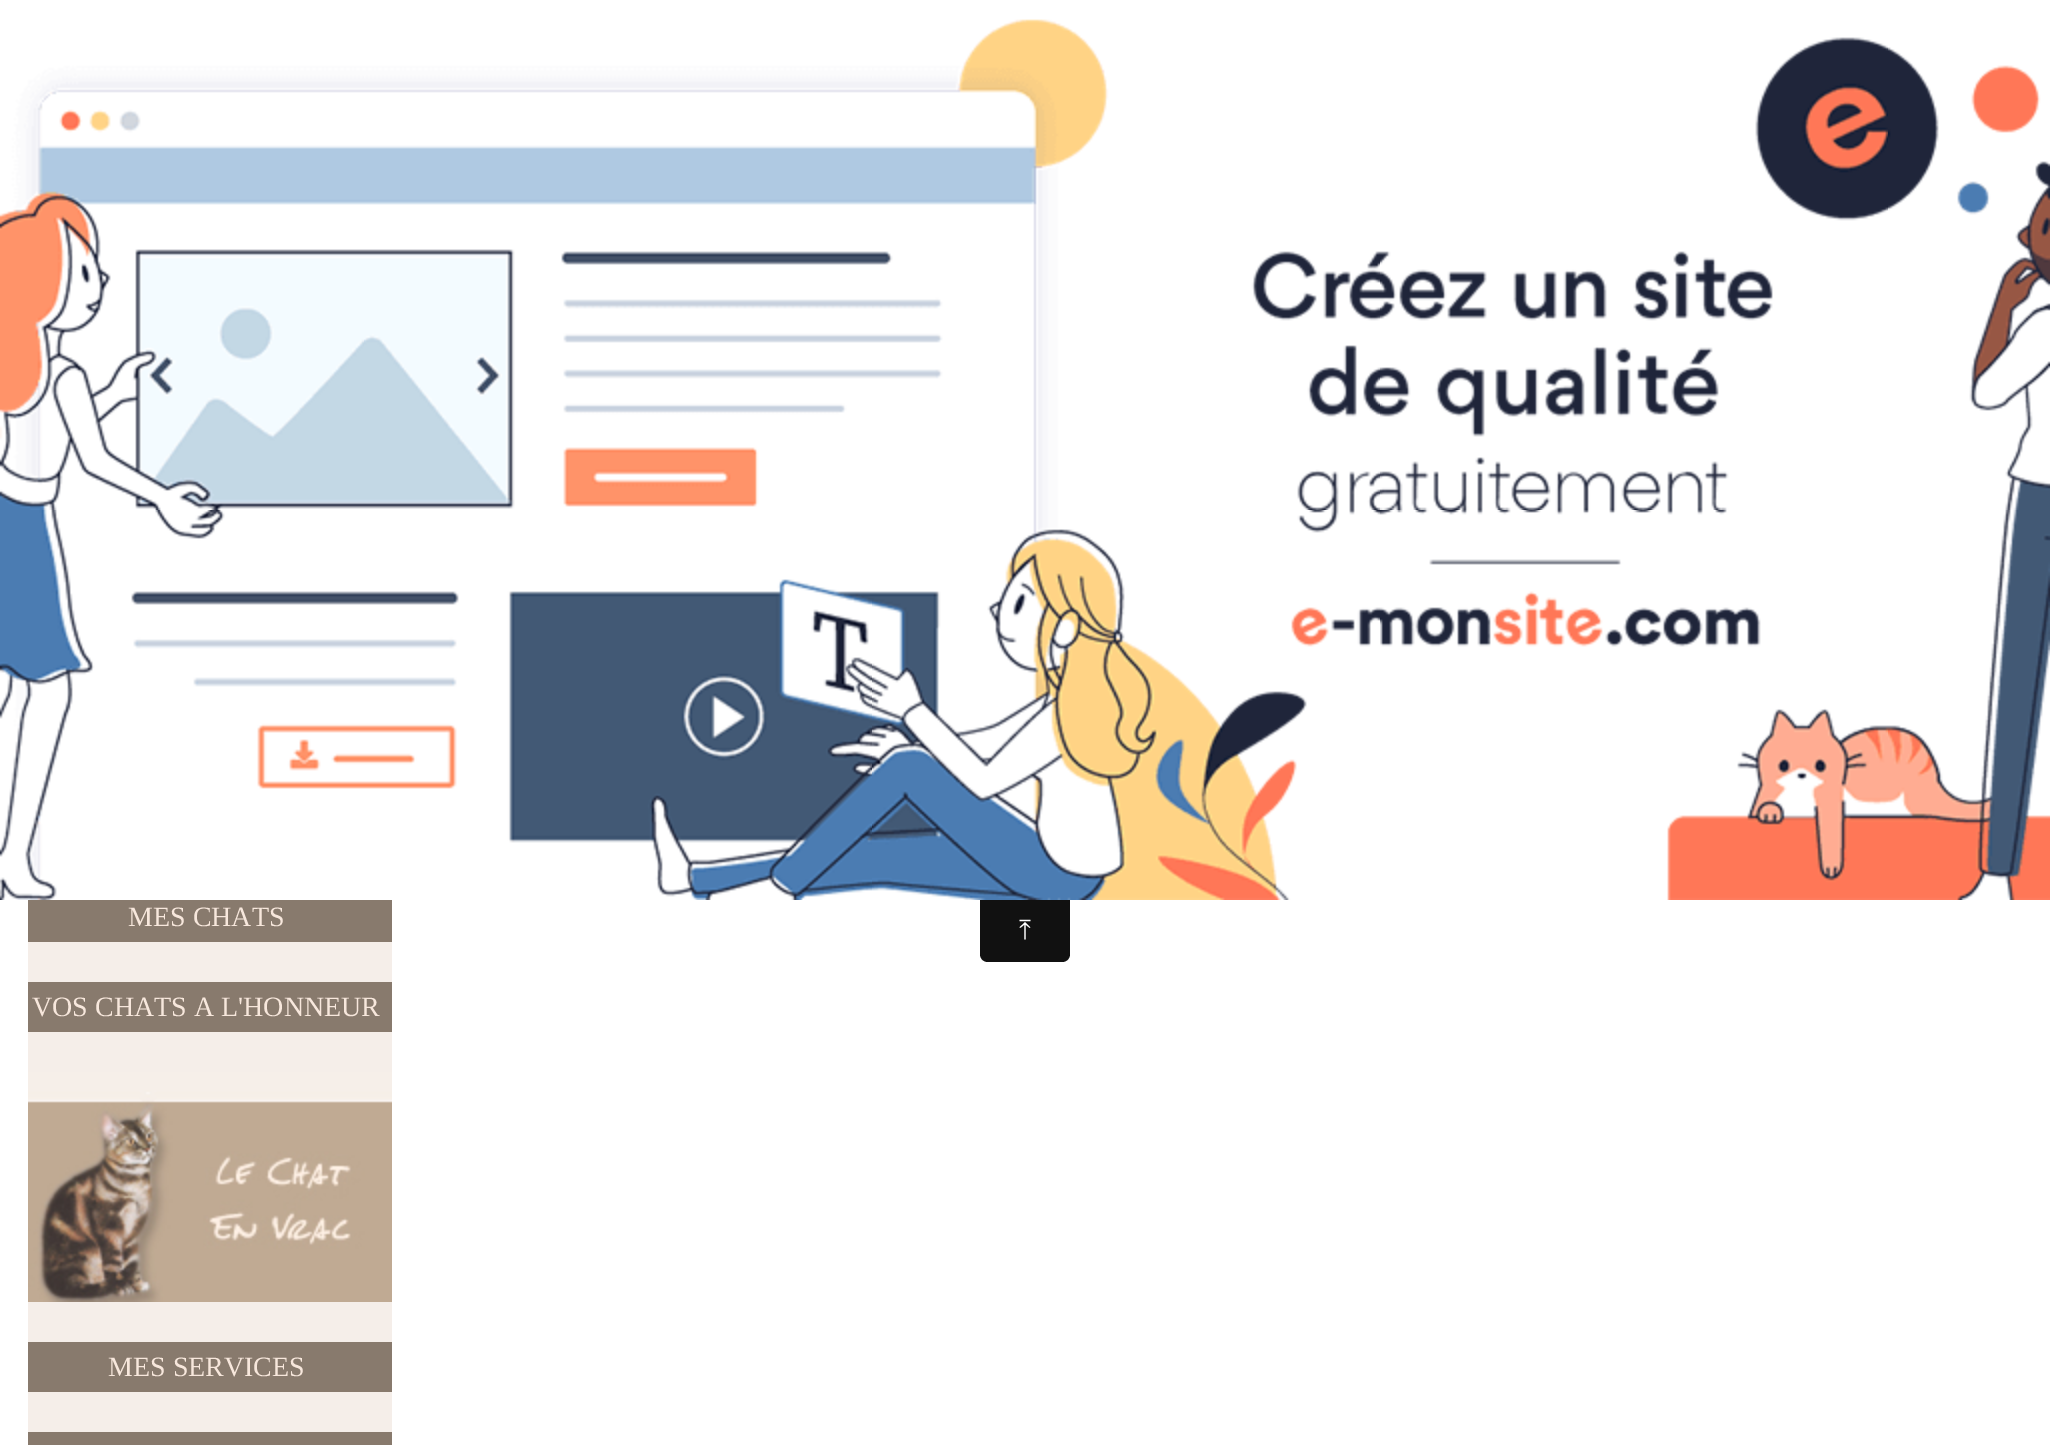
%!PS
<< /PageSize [2050 1445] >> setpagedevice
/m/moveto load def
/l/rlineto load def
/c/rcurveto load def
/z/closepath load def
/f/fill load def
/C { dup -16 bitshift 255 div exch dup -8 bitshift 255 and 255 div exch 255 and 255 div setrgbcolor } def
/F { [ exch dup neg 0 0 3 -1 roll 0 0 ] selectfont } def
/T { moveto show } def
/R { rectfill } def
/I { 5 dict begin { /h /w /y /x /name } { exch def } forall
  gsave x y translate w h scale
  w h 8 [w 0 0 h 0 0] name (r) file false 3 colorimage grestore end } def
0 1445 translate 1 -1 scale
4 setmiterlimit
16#FFFFFF C
0 0 2050 1445 R
16#F5EEE9 C
28 942 364 490 R
16#887A6D C
28 900 364 42 R
/LiberationSerif-Regular 28 F
16#F7E7DC C
(MES CHATS) 128 926 T
16#887A6D C
28 982 364 50 R
16#F7E7DC C
(VOS CHATS A L'HONNEUR) 32 1016 T
(1.rgb) 28 1072 364 230 I
16#887A6D C
28 1342 364 50 R
16#F7E7DC C
(MES SERVICES) 108 1376 T
16#887A6D C
28 1432 364 13 R
(2.rgb) 0 19 2050 881 I
16#111111 C
980 900 m 90 0 l 0 54 l 0 4.5 -3.5 8 -8 8 c -74 0 l -4.5 0 -8 -3.5 -8 -8 c z f
/FreeSerif-Regular 27 F
16#FFFFFF C
(⤒) 1019 939 T
showpage
